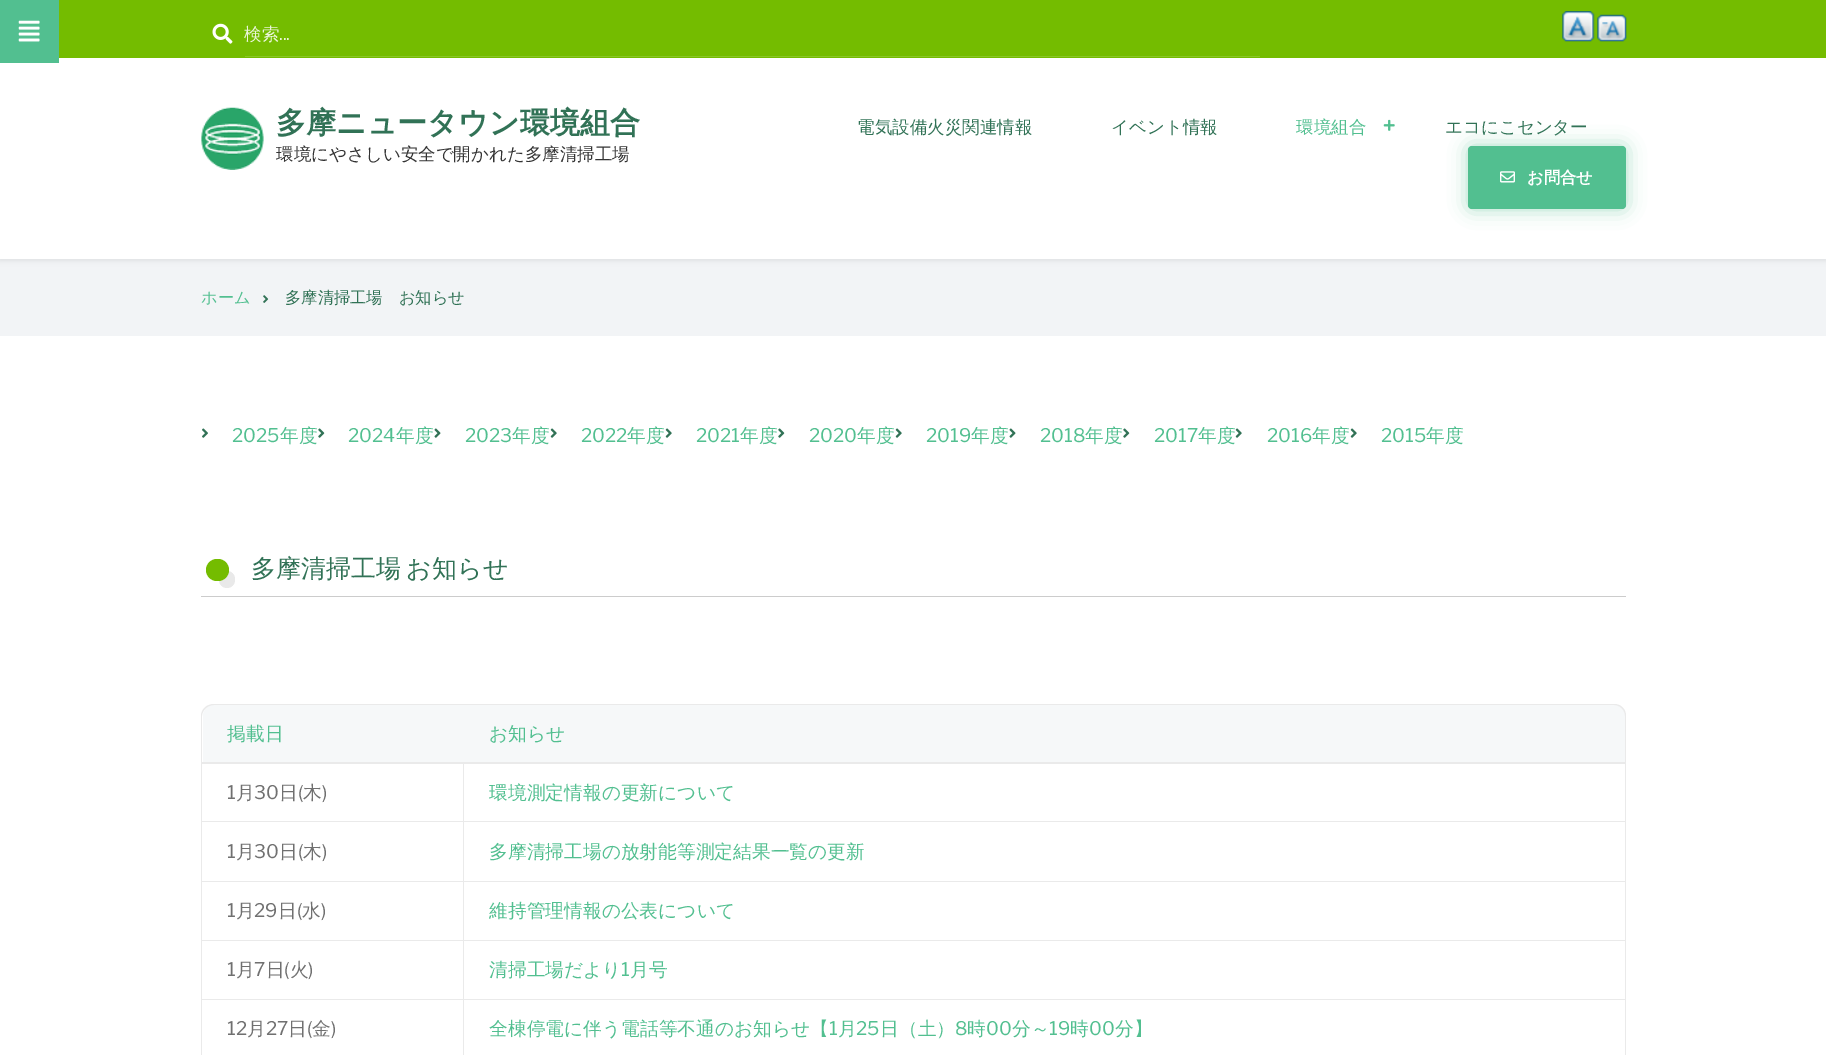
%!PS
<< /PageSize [1826 1055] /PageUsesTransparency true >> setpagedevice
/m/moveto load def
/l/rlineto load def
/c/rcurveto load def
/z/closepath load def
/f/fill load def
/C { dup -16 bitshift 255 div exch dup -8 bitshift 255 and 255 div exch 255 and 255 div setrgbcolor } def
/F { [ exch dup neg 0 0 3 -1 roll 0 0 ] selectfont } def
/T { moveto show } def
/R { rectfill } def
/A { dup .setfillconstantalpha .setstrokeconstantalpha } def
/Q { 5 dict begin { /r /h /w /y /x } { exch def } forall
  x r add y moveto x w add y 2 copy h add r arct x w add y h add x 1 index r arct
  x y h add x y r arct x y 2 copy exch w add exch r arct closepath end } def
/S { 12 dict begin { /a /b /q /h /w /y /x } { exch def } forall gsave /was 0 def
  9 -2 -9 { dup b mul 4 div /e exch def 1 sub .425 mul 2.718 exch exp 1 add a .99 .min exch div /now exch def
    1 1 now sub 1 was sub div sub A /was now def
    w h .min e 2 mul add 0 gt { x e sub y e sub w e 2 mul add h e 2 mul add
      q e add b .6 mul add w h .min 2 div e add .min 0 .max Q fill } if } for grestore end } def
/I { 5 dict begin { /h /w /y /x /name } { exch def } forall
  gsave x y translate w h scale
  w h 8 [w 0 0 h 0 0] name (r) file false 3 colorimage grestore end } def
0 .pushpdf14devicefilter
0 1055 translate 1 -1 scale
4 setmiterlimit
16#FFFFFF C
0 0 1826 1055 R
16#F2F4F6 C
0 259 1826 77 R
16#000000 C
0 1 1826 259 0 3 .1 S
16#FFFFFF C
0 58 1826 201 R
16#52BF90 C
0 0 59 63 R
(1.rgb) 18 20 22 22 I
16#74BC00 C
59 0 1767 58 R
(2.rgb) 212 23 21 21 I
16#89C626 C
245 56 1015 1 R
/WenQuanYiZenHei-Medium 17.5 F
16#EAF5D9 C
(検索) 244 40 T
/LibreFranklin-Regular 17.5 F
(...) 279 40 T
(3.rgb) 1562 11 33 31 I
(4.rgb) 1597 14 30 28 I
(5.rgb) 201 107 63 63 I
/WenQuanYiZenHei-Bold 30 F
16#317256 C
(多摩ニュータウン環境組合) 276 133 T
/WenQuanYiZenHei-Medium 17.5 F
16#333333 C
(環境にやさしい安全で開かれた多摩清掃工場) 276 160 T
16#317256 C
(電気設備火災関連情報) 857 133 T
(イベント情報) 1111 133 T
16#52BF90 C
(環境組合) 1296 133 T
(6.rgb) 1383 119 12 12 I
16#317256 C
(エコにこセンター) 1445 133 T
16#52BF90 C
1468 146 158 63 4 9.5 .5 S
1468 146 158 63 4 Q f
(7.rgb) 1500 171 15 12 I
/WenQuanYiZenHei-Bold 16.25 F
16#FFFFFF C
(お問合せ) 1527 183 T
/WenQuanYiZenHei-Medium 16.25 F
16#52BF90 C
(ホーム) 201 303 T
(8.rgb) 263 295 6 8 I
16#317256 C
(多摩清掃工場　お知らせ) 285 303 T
(9.rgb) 202 428 6 10 I
/LibreFranklin-Regular 18.75 F
16#52BF90 C
(2025) 232 442 T
/WenQuanYiZenHei-Medium 18.75 F
(年度) 280 442 T
(10.rgb) 318 428 7 10 I
/LibreFranklin-Regular 18.75 F
(2024) 348 442 T
/WenQuanYiZenHei-Medium 18.75 F
(年度) 396 442 T
(11.rgb) 434 428 7 10 I
/LibreFranklin-Regular 18.75 F
(2023) 465 442 T
/WenQuanYiZenHei-Medium 18.75 F
(年度) 512 442 T
(12.rgb) 550 428 7 10 I
/LibreFranklin-Regular 18.75 F
(2022) 581 442 T
/WenQuanYiZenHei-Medium 18.75 F
(年度) 627 442 T
(12.rgb) 665 428 7 10 I
/LibreFranklin-Regular 18.75 F
(2021) 696 442 T
/WenQuanYiZenHei-Medium 18.75 F
(年度) 740 442 T
(10.rgb) 778 428 7 10 I
/LibreFranklin-Regular 18.75 F
(2020) 809 442 T
/WenQuanYiZenHei-Medium 18.75 F
(年度) 857 442 T
(12.rgb) 895 428 7 10 I
/LibreFranklin-Regular 18.75 F
(2019) 926 442 T
/WenQuanYiZenHei-Medium 18.75 F
(年度) 971 442 T
(11.rgb) 1009 428 7 10 I
/LibreFranklin-Regular 18.75 F
(2018) 1040 442 T
/WenQuanYiZenHei-Medium 18.75 F
(年度) 1085 442 T
(10.rgb) 1123 428 7 10 I
/LibreFranklin-Regular 18.75 F
(2017) 1154 442 T
/WenQuanYiZenHei-Medium 18.75 F
(年度) 1198 442 T
(12.rgb) 1235 428 7 10 I
/LibreFranklin-Regular 18.75 F
(2016) 1267 442 T
/WenQuanYiZenHei-Medium 18.75 F
(年度) 1312 442 T
(12.rgb) 1350 428 7 10 I
/LibreFranklin-Regular 18.75 F
(2015) 1381 442 T
/WenQuanYiZenHei-Medium 18.75 F
(年度) 1426 442 T
16#CCCCCC C
201 596 1425 1 R
16#E9E9E9 C
219 571 16 17 8 Q f
16#74BC00 C
206 559 23 22 11 Q f
/WenQuanYiZenHei-Medium 25 F
16#317256 C
251 577 m -2 0 32 (多摩清掃工場 お知らせ) widthshow
16#F6F8F9 C
214 705 m 250 0 l 0 58 l -261 0 l 0 -47 l 0 -6 5 -11 11 -11 c z f
16#EAEAEA C
214 704 m 250 0 l 0 60 l -263 0 l 0 -48 l 0 -7 6 -12 13 -12 c z 214 705 m 250 0 l 0 57 l -262 0 l 0 -46 l 0 -6 6 -11 12 -11 c z eofill
/WenQuanYiZenHei-Medium 18.75 F
16#52BF90 C
(掲載日) 227 740 T
16#F6F8F9 C
464 705 m 1150 0 l 6 0 11 5 11 11 c 0 47 l -1161 0 l z f
16#EAEAEA C
464 704 m 1150 0 l 7 0 12 5 12 12 c 0 48 l -1162 0 l z 464 705 m 1150 0 l 6 0 11 5 11 11 c 0 46 l -1161 0 l z eofill
16#52BF90 C
(お知らせ) 489 740 T
16#EAEAEA C
463 764 1 291 R
201 821 263 1 R
201 764 1 59 R
/LibreFranklin-Regular 18.75 F
16#707070 C
(1) 227 799 T
/WenQuanYiZenHei-Medium 18.75 F
(月) 236 799 T
/LibreFranklin-Regular 18.75 F
(30) 254 799 T
/WenQuanYiZenHei-Medium 18.75 F
(日 木) 279 799 T
/LibreFranklin-Regular 18.75 F
(\() 298 799 T
(\)) 322 799 T
16#EAEAEA C
1625 764 1 291 R
464 821 1162 1 R
/WenQuanYiZenHei-Medium 18.75 F
16#52BF90 C
(環境測定情報の更新について) 489 799 T
16#EAEAEA C
201 881 1425 1 R
201 823 1 60 R
/LibreFranklin-Regular 18.75 F
16#707070 C
(1) 227 858 T
/WenQuanYiZenHei-Medium 18.75 F
(月) 236 858 T
/LibreFranklin-Regular 18.75 F
(30) 254 858 T
/WenQuanYiZenHei-Medium 18.75 F
(日 木) 279 858 T
/LibreFranklin-Regular 18.75 F
(\() 298 858 T
(\)) 322 858 T
/WenQuanYiZenHei-Medium 18.75 F
16#52BF90 C
(多摩清掃工場の放射能等測定結果一覧の更新) 489 858 T
16#EAEAEA C
201 940 1425 1 R
201 883 1 58 R
/LibreFranklin-Regular 18.75 F
16#707070 C
(1) 227 917 T
/WenQuanYiZenHei-Medium 18.75 F
(月) 236 917 T
/LibreFranklin-Regular 18.75 F
(29) 254 917 T
/WenQuanYiZenHei-Medium 18.75 F
(日 水) 278 917 T
/LibreFranklin-Regular 18.75 F
(\() 297 917 T
(\)) 321 917 T
/WenQuanYiZenHei-Medium 18.75 F
16#52BF90 C
(維持管理情報の公表について) 489 917 T
16#EAEAEA C
201 999 1425 1 R
201 941 1 114 R
/LibreFranklin-Regular 18.75 F
16#707070 C
(1) 227 976 T
/WenQuanYiZenHei-Medium 18.75 F
(月) 236 976 T
/LibreFranklin-Regular 18.75 F
(7) 254 976 T
/WenQuanYiZenHei-Medium 18.75 F
(日 火) 266 976 T
/LibreFranklin-Regular 18.75 F
(\() 284 976 T
(\)) 308 976 T
/WenQuanYiZenHei-Medium 18.75 F
16#52BF90 C
(清掃工場だより) 489 976 T
/LibreFranklin-Regular 18.75 F
(1) 621 976 T
/WenQuanYiZenHei-Medium 18.75 F
(月号) 630 976 T
/LibreFranklin-Regular 18.75 F
16#707070 C
(12) 227 1035 T
/WenQuanYiZenHei-Medium 18.75 F
(月) 247 1035 T
/LibreFranklin-Regular 18.75 F
(27) 266 1035 T
/WenQuanYiZenHei-Medium 18.75 F
(日 金) 288 1035 T
/LibreFranklin-Regular 18.75 F
(\() 307 1035 T
(\)) 331 1035 T
/WenQuanYiZenHei-Medium 18.75 F
16#52BF90 C
(全棟停電に伴う電話等不通のお知らせ【) 489 1035 T
/LibreFranklin-Regular 18.75 F
(1) 829 1035 T
/WenQuanYiZenHei-Medium 18.75 F
(月) 838 1035 T
/LibreFranklin-Regular 18.75 F
(25) 856 1035 T
/WenQuanYiZenHei-Medium 18.75 F
(日（土）) 880 1035 T
/LibreFranklin-Regular 18.75 F
(8) 955 1035 T
/WenQuanYiZenHei-Medium 18.75 F
(時) 967 1035 T
/LibreFranklin-Regular 18.75 F
(00) 986 1035 T
/WenQuanYiZenHei-Medium 18.75 F
(分～) 1012 1035 T
/LibreFranklin-Regular 18.75 F
(19) 1049 1035 T
/WenQuanYiZenHei-Medium 18.75 F
(時) 1070 1035 T
/LibreFranklin-Regular 18.75 F
(00) 1089 1035 T
/WenQuanYiZenHei-Medium 18.75 F
(分】) 1115 1035 T
.poppdf14devicefilter showpage
